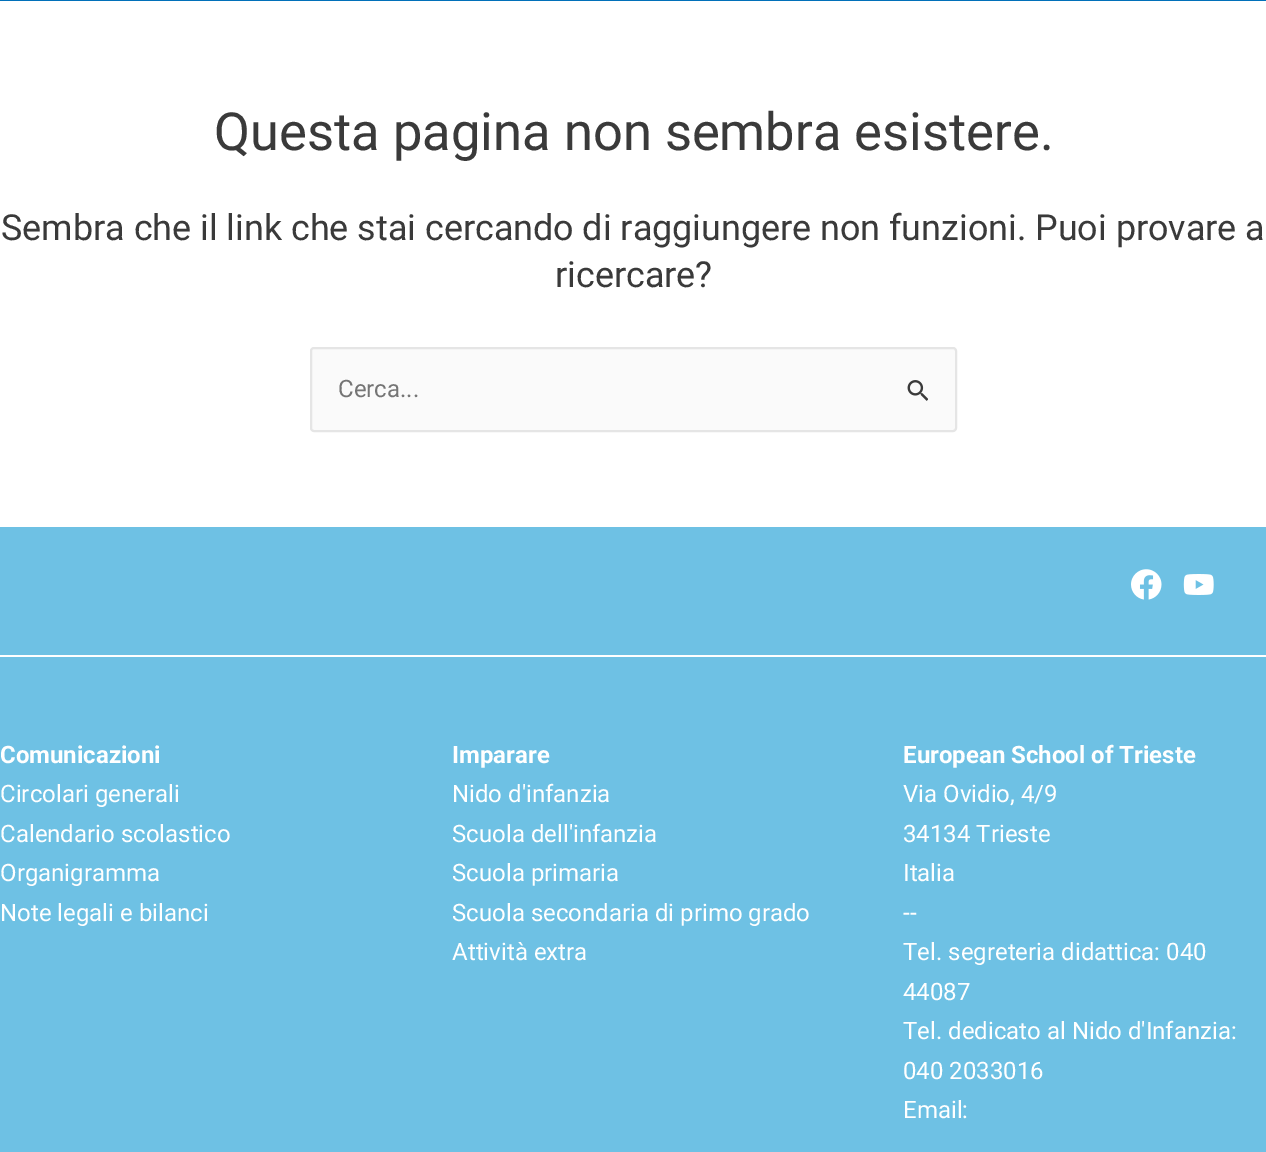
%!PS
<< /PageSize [1266 1152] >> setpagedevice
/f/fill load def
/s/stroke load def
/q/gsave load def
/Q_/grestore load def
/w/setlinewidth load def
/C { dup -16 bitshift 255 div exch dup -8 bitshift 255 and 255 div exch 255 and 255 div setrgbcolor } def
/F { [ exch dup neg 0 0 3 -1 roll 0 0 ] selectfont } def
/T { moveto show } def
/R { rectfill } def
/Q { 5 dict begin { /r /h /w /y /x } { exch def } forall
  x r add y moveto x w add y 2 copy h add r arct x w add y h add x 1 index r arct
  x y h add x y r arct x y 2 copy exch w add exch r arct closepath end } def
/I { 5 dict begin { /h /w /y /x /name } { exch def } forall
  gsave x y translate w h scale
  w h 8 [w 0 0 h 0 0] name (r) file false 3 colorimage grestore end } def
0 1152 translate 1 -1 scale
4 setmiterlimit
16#FFFFFF C
0 0 1266 1152 R
16#0170B9 C
0 0 1266 1 R
/Roboto-Regular 52.5 F
16#3A3A3A C
(Questa pagina non sembra esistere.) 214 150 T
/Roboto-Regular 35.9 F
(Sembra che il link che stai cercando di raggiungere non funzioni. Puoi provare a) 1 240 T
(ricercare?) 555 287 T
16#FAFAFA C
311 348 645 83 3 Q q f Q_
16#E5E5E5 C
2 w
s
/Roboto-Regular 24 F
16#757575 C
(Cerca...) 338 397 T
(1.rgb) 907 380 21 21 I
16#6EC1E4 C
0 527 1266 128 R
(2.rgb) 1131 569 31 31 I
(3.rgb) 1183 574 31 21 I
0 657 1266 495 R
/Roboto-Bold 24 F
16#FFFFFF C
(Comunicazioni) 0 763 T
/Roboto-Regular 24 F
(Circolari generali) 0 802 T
(Calendario scolastico) 0 842 T
(Organigramma) 0 881 T
(Note legali e bilanci) 0 921 T
/Roboto-Bold 24 F
(Imparare) 452 763 T
/Roboto-Regular 24 F
(Nido d'infanzia) 452 802 T
(Scuola dell'infanzia) 452 842 T
(Scuola primaria) 452 881 T
(Scuola secondaria di primo grado) 452 921 T
(Attività extra) 452 960 T
/Roboto-Bold 24 F
(European School of Trieste) 903 763 T
/Roboto-Regular 24 F
(Via Ovidio, 4/9) 903 802 T
(34134 Trieste) 903 842 T
(Italia) 903 881 T
(--) 903 921 T
(Tel. segreteria didattica: 040) 903 960 T
(44087) 903 1000 T
(Tel. dedicato al Nido d'Infanzia:) 903 1039 T
(040 2033016) 903 1079 T
(Email:) 903 1118 T
showpage
